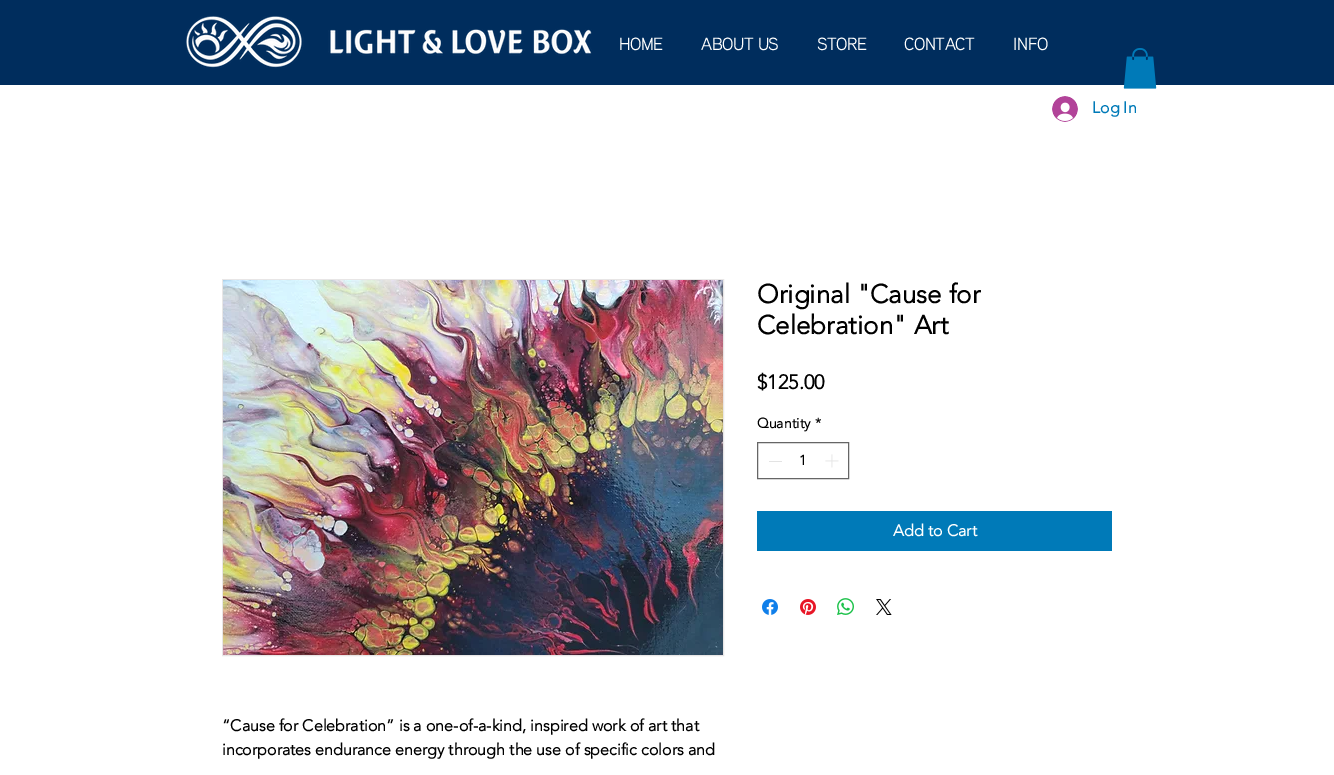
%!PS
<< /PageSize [1334 775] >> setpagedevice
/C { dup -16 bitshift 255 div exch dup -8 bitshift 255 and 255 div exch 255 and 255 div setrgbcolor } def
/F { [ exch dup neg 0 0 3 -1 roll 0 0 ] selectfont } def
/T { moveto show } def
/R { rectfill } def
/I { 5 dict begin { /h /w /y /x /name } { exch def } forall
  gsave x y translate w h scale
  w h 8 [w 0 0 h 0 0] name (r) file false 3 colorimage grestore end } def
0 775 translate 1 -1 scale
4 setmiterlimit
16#FFFFFF C
0 0 1334 775 R
16#002D5D C
0 0 1334 85 R
(1.rgb) 186 16 406 52 I
/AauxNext-Bold 17 F
16#FFFFFF C
(HOME) 619 50 T
(ABOUT US) 701 50 T
(STORE) 817 50 T
(CONTACT) 904 50 T
(INFO) 1013 50 T
(2.rgb) 1123 48 34 41 I
(3.rgb) 1052 96 26 26 I
/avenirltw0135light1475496-Bold 16 F
16#007AB8 C
(Log In) 1092 113 T
/avenirltw0135light1475496-Bold 26 F
16#000000 C
(Original "Cause for) 757 303 T
(Celebration" Art) 757 334 T
/avenirltw0135light1475496-Bold 20 F
($125.00) 757 389 T
/avenirltw0135light1475496-Bold 14 F
(Quantity) 757 428 T
(*) 815 428 T
16#666666 C
757.5 442.5 91 36 rectstroke
16#E3E3E3 C
769 461 13 1 R
16#000000 C
(1) 799 465 T
(4.rgb) 825 454 14 14 I
16#007AB8 C
757 511 355 40 R
/avenirltw0135light1475496-Bold 16 F
16#FFFFFF C
(Add to Cart) 893 536 T
(5.rgb) 762 599 16 16 I
(6.rgb) 800 599 16 16 I
(7.rgb) 837 598 17 17 I
(8.rgb) 876 599 16 16 I
16#E8E6E6 C
222.5 279.5 501 376 rectstroke
(9.rgb) 223 280 500 375 I
16#000000 C
(“Cause for Celebration” is a one-of-a-kind, inspired work of art that) 222 731 T
(incorporates endurance energy through the use of specific colors and) 222 755 T
showpage
